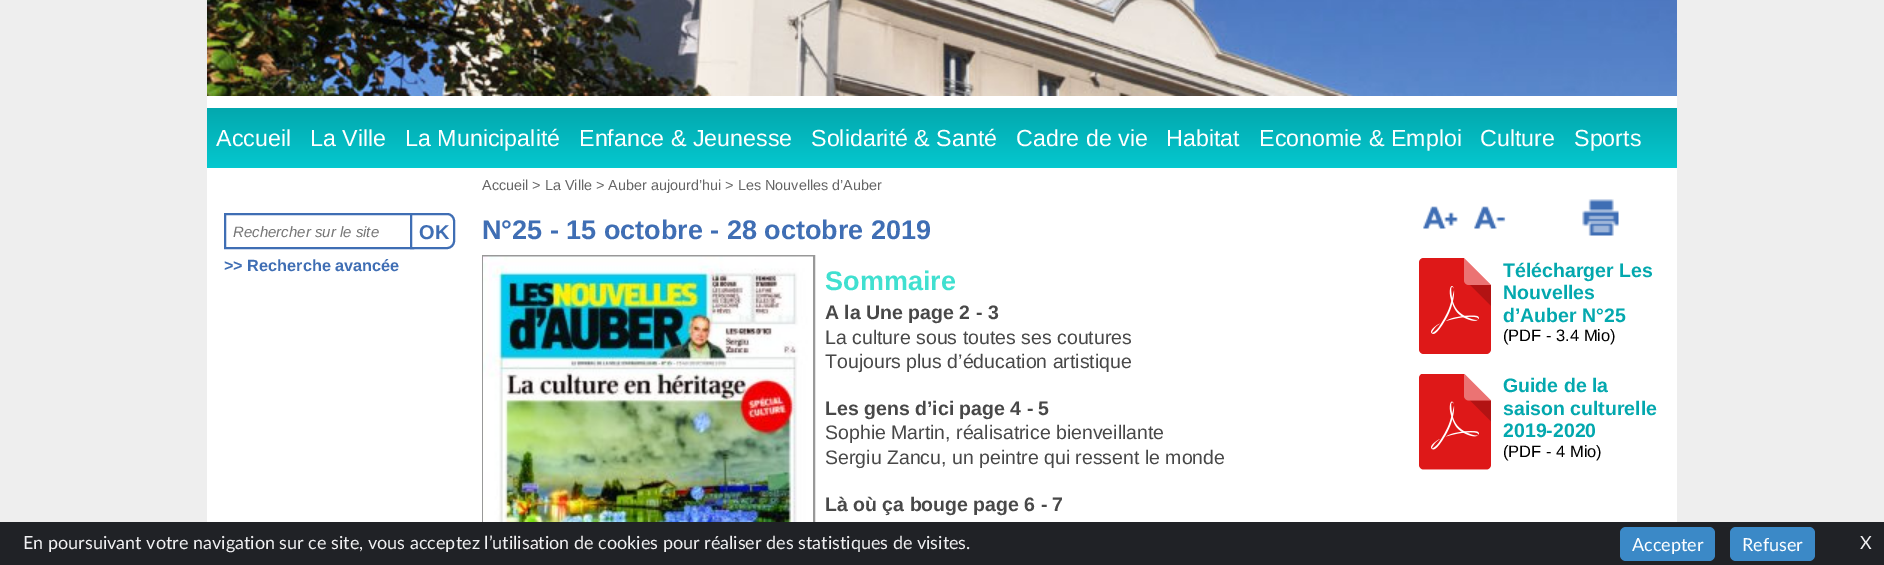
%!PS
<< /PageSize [1884 565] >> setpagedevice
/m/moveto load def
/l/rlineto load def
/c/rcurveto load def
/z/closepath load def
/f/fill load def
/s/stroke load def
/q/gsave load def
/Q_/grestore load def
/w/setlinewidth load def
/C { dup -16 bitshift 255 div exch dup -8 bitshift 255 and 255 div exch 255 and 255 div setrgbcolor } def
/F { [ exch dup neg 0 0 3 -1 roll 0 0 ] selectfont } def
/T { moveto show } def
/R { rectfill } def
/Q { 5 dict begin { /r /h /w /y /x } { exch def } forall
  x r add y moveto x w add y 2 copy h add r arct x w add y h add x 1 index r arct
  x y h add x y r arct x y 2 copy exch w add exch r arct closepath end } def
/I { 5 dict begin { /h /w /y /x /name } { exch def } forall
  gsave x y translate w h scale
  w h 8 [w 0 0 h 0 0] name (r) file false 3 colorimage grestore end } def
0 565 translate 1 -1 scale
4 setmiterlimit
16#EEEEEE C
0 0 1884 565 R
16#FFFFFF C
207 96 1470 426 R
(1.rgb) 207 0 1470 96 I
q 207 108 m 1470 0 l 0 60 l -1470 0 l z clip newpath
<< /ShadingType 2 /ColorSpace /DeviceRGB /Coords [942 108 942 168] /Extend [true true] /Function << /FunctionType 2 /Domain [0 1] /C0 [.012 .659 .682] /C1 [.02 .784 .812] /N 1 >> >> shfill Q_
/LiberationSans-Regular 23.25 F
(Accueil) 216 146 T
(La Ville) 310 146 T
(La Municipalité) 405 146 T
(Enfance & Jeunesse) 579 146 T
(Solidarité & Santé) 811 146 T
(Cadre de vie) 1016 146 T
(Habitat) 1166 146 T
(Economie & Emploi) 1259 146 T
(Culture) 1480 146 T
(Sports) 1574 146 T
16#3F6EB4 C
2 w
225 214 188 34 rectstroke
/LiberationSans-Italic 15 F
16#757575 C
(Rechercher sur le site) 233 237 T
16#FFFFFF C
411 214 m 36 0 l 4 0 7 3 7 7 c 0 20 l 0 4 -3 7 -7 7 c -36 0 l z q f Q_
16#3F6EB4 C
s
/LiberationSans-Bold 20 F
(OK) 419 239 T
/LiberationSans-Bold 16.25 F
(>> Recherche avancée) 224 271 T
/LiberationSans-Regular 14.4 F
16#656565 C
(Accueil > La Ville > Auber aujourd’hui > Les Nouvelles d’Auber) 482 190 T
/LiberationSans-Bold 27 F
16#3F6EB4 C
(N°25 - 15 octobre - 28 octobre 2019) 482 239 T
16#989898 C
483 256 331 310 rectstroke
(2.rgb) 483 256 330 266 I
16#40E0D0 C
(Sommaire) 825 290 T
/LiberationSans-Bold 19.5 F
16#484848 C
(A la Une page 2 - 3) 825 319 T
/LiberationSans-Regular 19.5 F
(La culture sous toutes ses coutures) 825 344 T
(Toujours plus d’éducation artistique) 825 368 T
/LiberationSans-Bold 19.5 F
(Les gens d’ici page 4 - 5) 825 415 T
/LiberationSans-Regular 19.5 F
(Sophie Martin, réalisatrice bienveillante) 825 439 T
(Sergiu Zancu, un peintre qui ressent le monde) 825 464 T
/LiberationSans-Bold 19.5 F
(Là où ça bouge page 6 - 7) 825 511 T
(3.rgb) 1423 206 35 23 I
(4.rgb) 1474 206 32 23 I
(5.rgb) 1582 199 37 37 I
(6.rgb) 1419 258 72 96 I
16#03A8AE C
(Télécharger Les) 1503 277 T
(Nouvelles) 1503 299 T
(d’Auber N°25) 1503 322 T
/LiberationSans-Regular 16.5 F
16#000000 C
(\(PDF - 3.4 Mio\)) 1503 341 T
(7.rgb) 1419 374 72 96 I
/LiberationSans-Bold 19.5 F
16#03A8AE C
(Guide de la) 1503 392 T
(saison culturelle) 1503 415 T
(2019-2020) 1503 437 T
/LiberationSans-Regular 16.5 F
16#000000 C
(\(PDF - 4 Mio\)) 1503 457 T
16#202226 C
0 522 1884 43 R
/Lato-Regular 18 F
16#F1F1F3 C
(En poursuivant votre navigation sur ce site, vous acceptez l’utilisation de cookies pour réaliser des statistiques de visites.) 23 549 T
16#3B89C7 C
1620 527 95 34 6 Q f
16#FFFFFF C
(Accepter) 1632 551 T
16#3B89C7 C
1730 527 85 34 6 Q f
16#FFFFFF C
(Refuser) 1742 551 T
16#F1F1F3 C
(X) 1860 549 T
showpage
